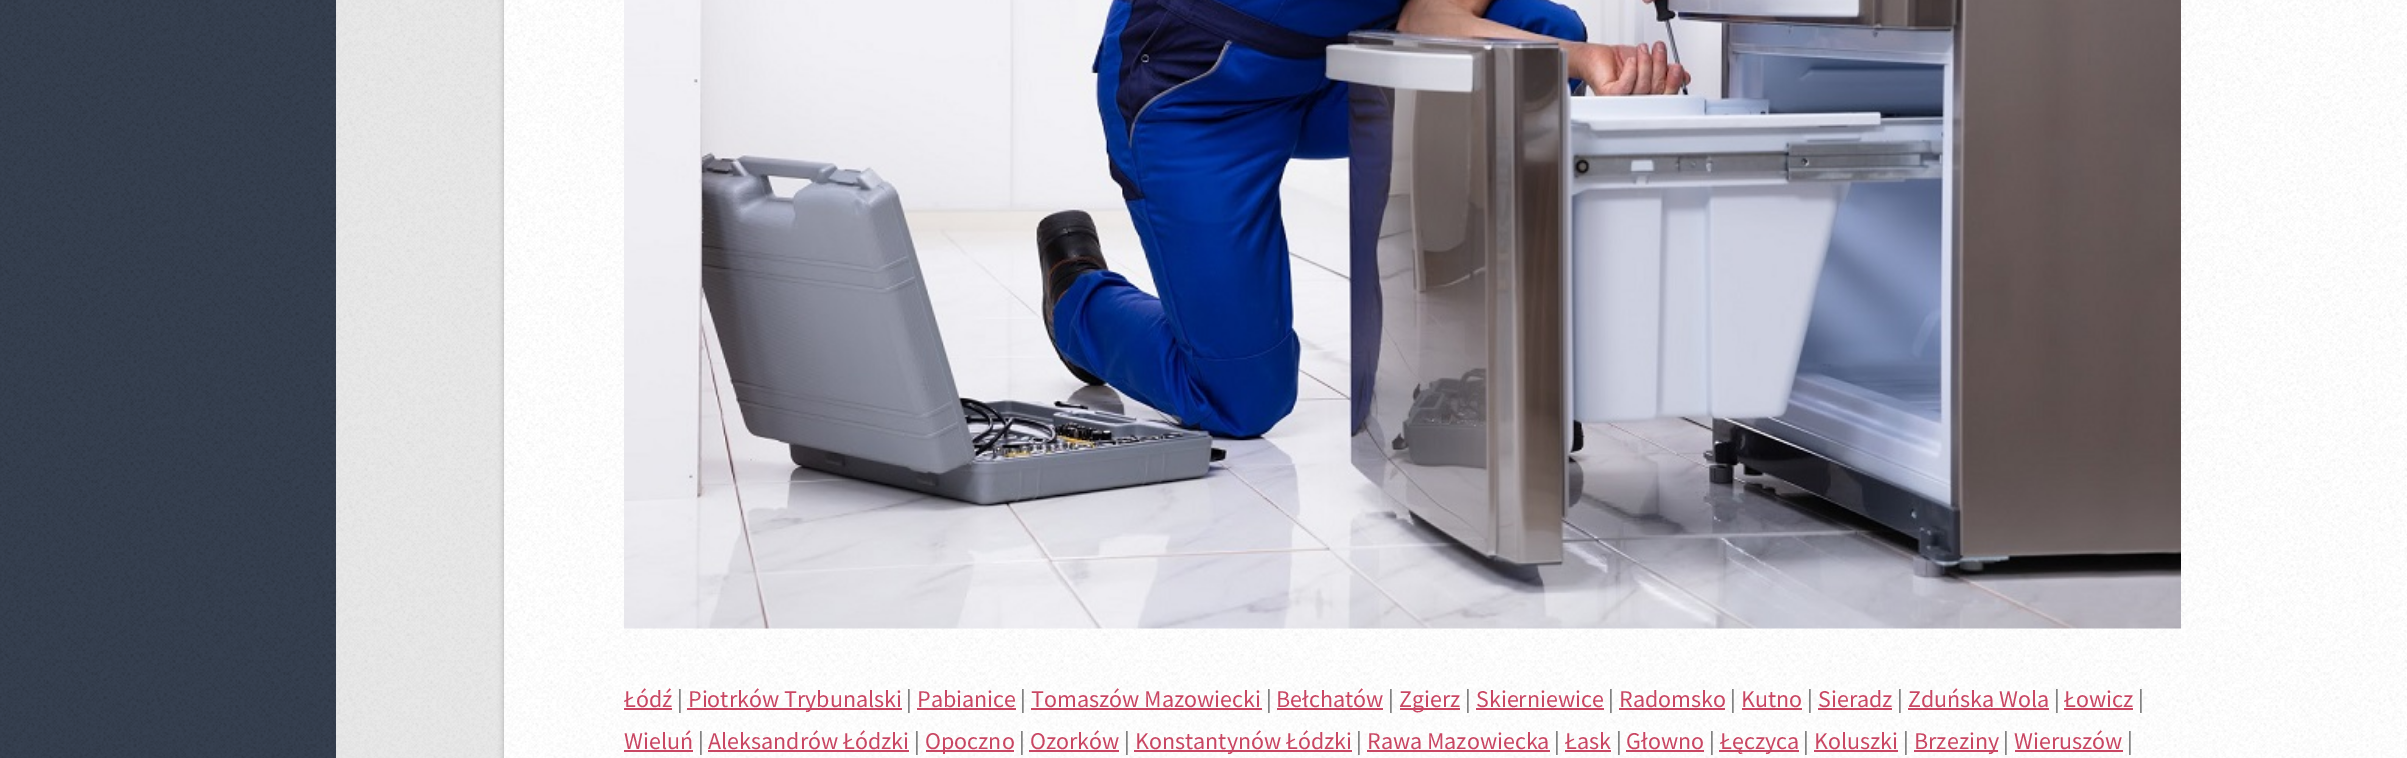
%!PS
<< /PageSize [2407 758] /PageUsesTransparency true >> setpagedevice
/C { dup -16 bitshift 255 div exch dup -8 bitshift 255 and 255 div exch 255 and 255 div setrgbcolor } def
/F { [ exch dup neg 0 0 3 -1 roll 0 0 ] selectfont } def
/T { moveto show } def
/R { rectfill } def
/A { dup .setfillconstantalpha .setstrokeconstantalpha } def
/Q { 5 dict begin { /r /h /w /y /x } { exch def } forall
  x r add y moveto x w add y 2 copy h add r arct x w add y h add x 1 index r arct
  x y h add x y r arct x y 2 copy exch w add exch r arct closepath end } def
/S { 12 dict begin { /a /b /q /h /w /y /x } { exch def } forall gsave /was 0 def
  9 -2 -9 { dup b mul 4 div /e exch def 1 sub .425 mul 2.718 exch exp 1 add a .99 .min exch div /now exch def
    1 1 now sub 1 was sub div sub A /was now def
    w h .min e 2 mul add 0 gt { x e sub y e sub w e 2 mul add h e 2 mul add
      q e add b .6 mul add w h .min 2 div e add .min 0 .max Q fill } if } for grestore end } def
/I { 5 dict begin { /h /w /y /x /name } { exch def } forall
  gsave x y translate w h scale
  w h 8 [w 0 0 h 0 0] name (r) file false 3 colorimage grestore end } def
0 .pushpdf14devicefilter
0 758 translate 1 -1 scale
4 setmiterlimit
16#E8E8E8 C
0 0 2407 758 R
(1.rgb) 336 0 168 758 I
16#364050 C
0 0 336 758 R
(2.rgb) 0 0 336 758 I
16#000000 C
504 -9 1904 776 0 3 .25 S
16#FFFFFF C
504 0 1903 758 R
(3.rgb) 504 0 1903 758 I
(4.rgb) 624 0 1557 629 I
/SourceSansPro-Regular 24 F
16#C94663 C
(Łódź) 624 707 T
624 708 48 2 R
16#565656 C
(|) 677 707 T
16#C94663 C
687 708 215 2 R
(Piotrków Trybunalski) 688 707 T
16#565656 C
(|) 906 707 T
16#C94663 C
(Pabianice) 917 707 T
917 708 99 2 R
16#565656 C
(|) 1020 707 T
16#C94663 C
(Tomaszów Mazowiecki) 1031 707 T
1031 708 231 2 R
16#565656 C
(|) 1266 707 T
16#C94663 C
(Bełchatów) 1276 707 T
1277 708 106 2 R
16#565656 C
(|) 1388 707 T
16#C94663 C
1400 708 60 2 R
(Zgierz) 1399 707 T
16#565656 C
(|) 1465 707 T
16#C94663 C
(Skierniewice) 1476 707 T
1476 708 128 2 R
16#565656 C
(|) 1608 707 T
16#C94663 C
(Radomsko) 1619 707 T
1619 708 106 2 R
16#565656 C
(|) 1730 707 T
16#C94663 C
(Kutno) 1741 707 T
1742 708 60 2 R
16#565656 C
(|) 1807 707 T
16#C94663 C
(Sieradz) 1818 707 T
1818 708 74 2 R
16#565656 C
(|) 1897 707 T
16#C94663 C
(Zduńska Wola) 1908 707 T
1908 708 141 2 R
16#565656 C
(|) 2054 707 T
16#C94663 C
(Łowicz) 2064 707 T
2064 708 69 2 R
16#565656 C
(|) 2138 707 T
16#C94663 C
(Wieluń) 624 749 T
624 750 69 2 R
16#565656 C
(|) 698 749 T
16#C94663 C
(Aleksandrów Łódzki) 708 749 T
708 750 201 2 R
16#565656 C
(|) 914 749 T
16#C94663 C
926 750 88 2 R
(Opoczno) 925 749 T
16#565656 C
(|) 1019 749 T
16#C94663 C
(Ozorków) 1030 749 T
1029 750 90 2 R
16#565656 C
(|) 1124 749 T
16#C94663 C
1134 750 218 2 R
(Konstantynów Łódzki) 1135 749 T
16#565656 C
(|) 1356 749 T
16#C94663 C
(Rawa Mazowiecka) 1367 749 T
1367 750 183 2 R
16#565656 C
(|) 1554 749 T
16#C94663 C
(Łask) 1565 749 T
1565 750 46 2 R
16#565656 C
(|) 1616 749 T
16#C94663 C
(Głowno) 1626 749 T
1626 750 78 2 R
16#565656 C
(|) 1709 749 T
16#C94663 C
1719 750 80 2 R
(Łęczyca) 1720 749 T
16#565656 C
(|) 1803 749 T
16#C94663 C
(Koluszki) 1814 749 T
1814 750 84 2 R
16#565656 C
(|) 1903 749 T
16#C94663 C
1914 750 84 2 R
(Brzeziny) 1914 749 T
16#565656 C
(|) 2003 749 T
16#C94663 C
(Wieruszów) 2014 749 T
2015 750 108 2 R
16#565656 C
(|) 2127 749 T
.poppdf14devicefilter showpage
